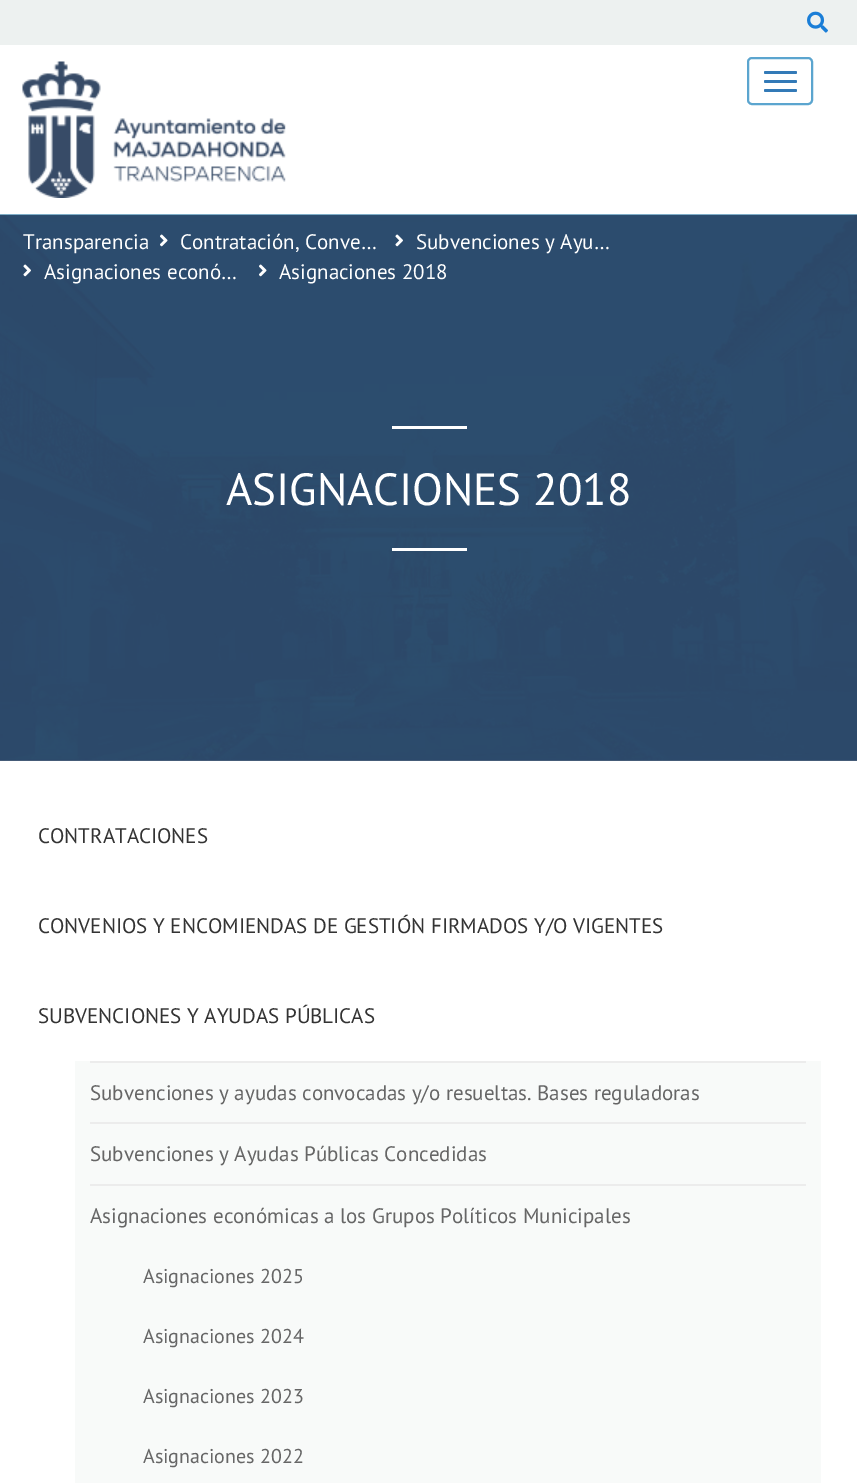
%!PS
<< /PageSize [857 1483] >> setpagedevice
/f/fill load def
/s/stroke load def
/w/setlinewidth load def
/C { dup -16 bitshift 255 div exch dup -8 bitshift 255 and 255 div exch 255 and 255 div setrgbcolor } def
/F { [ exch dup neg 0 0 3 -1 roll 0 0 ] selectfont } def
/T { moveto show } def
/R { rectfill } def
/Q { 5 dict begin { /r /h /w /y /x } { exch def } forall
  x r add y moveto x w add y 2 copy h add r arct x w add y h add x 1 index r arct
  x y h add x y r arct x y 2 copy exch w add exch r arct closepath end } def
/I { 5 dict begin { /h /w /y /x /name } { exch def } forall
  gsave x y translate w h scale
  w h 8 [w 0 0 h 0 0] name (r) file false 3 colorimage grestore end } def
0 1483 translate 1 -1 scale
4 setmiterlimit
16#EDF1F0 C
0 0 857 1483 R
(1.rgb) 807 11 21 22 I
16#FFFFFF C
0 45 857 170 R
(2.rgb) 22 61 264 137 I
16#5BA5CF C
2 w
748 58 64 46 4 Q s
16#337AB7 C
764 71 33 3 1.5 Q f
764 80 33 3 1.5 Q f
764 89 33 3 1.5 Q f
16#FFFFFF C
0 761 857 722 R
16#5F6F85 C
0 760 857 1 R
(7.rgb) 0 214 857 547 I
/PTSans-Regular 21 F
16#FFFFFF C
(Transparencia) 23 249 T
(3.rgb) 160 234 8 13 I
(Contratación, Conve…) 180 249 T
(4.rgb) 395 234 8 13 I
(Subvenciones y Ayu…) 416 249 T
(5.rgb) 23 264 8 13 I
(Asignaciones econó…) 44 279 T
(6.rgb) 259 264 8 13 I
(Asignaciones 2018) 279 279 T
392 426 75 3 R
/PTSans-Regular 45 F
(ASIGNACIONES 2018) 226 505 T
392 548 75 3 R
/PTSans-Regular 21 F
16#333333 C
(CONTRATACIONES) 38 843 T
(CONVENIOS Y ENCOMIENDAS DE GESTIÓN FIRMADOS Y/O VIGENTES) 38 933 T
(SUBVENCIONES Y AYUDAS PÚBLICAS) 38 1023 T
16#F8FAF9 C
75 1061 746 422 R
16#ECECEC C
90 1061 716 2 R
90 1122 716 2 R
16#666666 C
(Subvenciones y ayudas convocadas y/o resueltas. Bases reguladoras) 90 1100 T
16#ECECEC C
90 1184 716 2 R
16#666666 C
(Subvenciones y Ayudas Públicas Concedidas) 90 1161 T
(Asignaciones económicas a los Grupos Políticos Municipales) 90 1223 T
/PTSans-Regular 20 F
(Asignaciones 2025) 143 1283 T
(Asignaciones 2024) 143 1343 T
(Asignaciones 2023) 143 1403 T
(Asignaciones 2022) 143 1463 T
showpage
